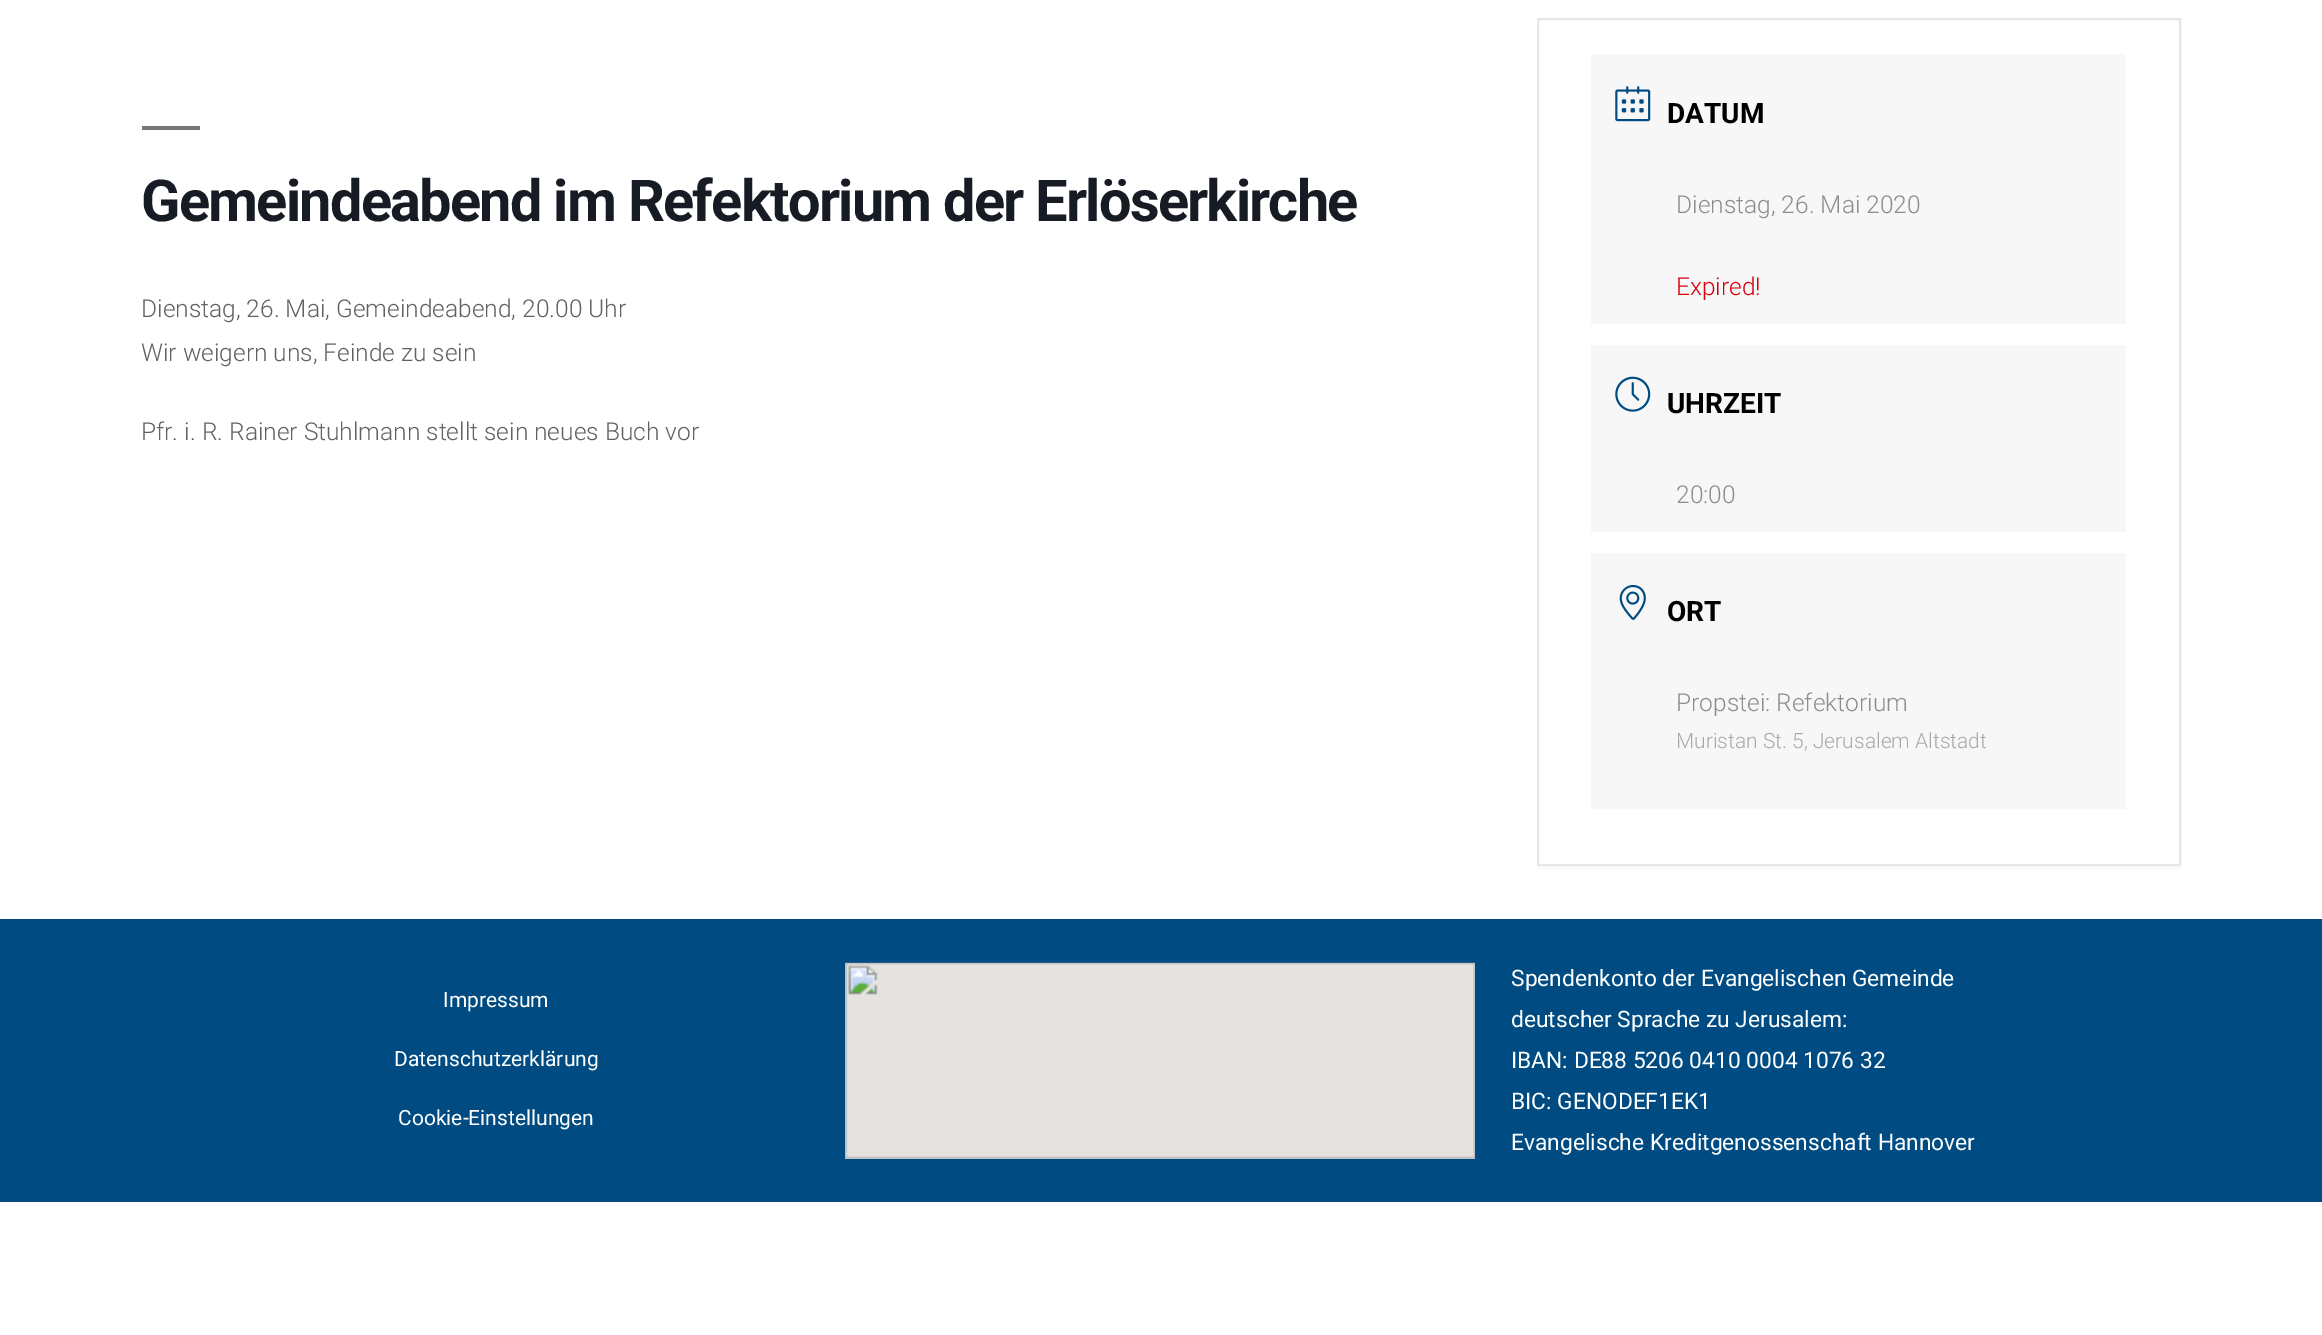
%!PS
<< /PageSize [2322 1335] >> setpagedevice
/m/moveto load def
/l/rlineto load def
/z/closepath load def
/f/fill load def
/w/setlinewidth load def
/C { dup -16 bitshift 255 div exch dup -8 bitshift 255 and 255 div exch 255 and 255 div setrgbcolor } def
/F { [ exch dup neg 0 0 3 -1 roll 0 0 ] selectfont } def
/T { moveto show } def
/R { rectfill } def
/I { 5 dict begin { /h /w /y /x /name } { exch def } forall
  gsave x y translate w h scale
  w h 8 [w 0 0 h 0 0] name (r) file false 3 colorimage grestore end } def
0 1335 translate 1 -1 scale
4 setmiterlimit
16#FFFFFF C
0 0 2322 1335 R
16#767676 C
142 126 58 4 R
/Roboto-Bold 57.75 F
16#171C24 C
141 221 m -1.75 0 (Gemeindeabend im Refektorium der Erlöserkirche) ashow
/Roboto-Light 24.5 F
16#616161 C
(Dienstag, 26. Mai, Gemeindeabend, 20.00 Uhr) 141 317 T
(Wir weigern uns, Feinde zu sein) 141 361 T
(Pfr. i. R. Rainer Stuhlmann stellt sein neues Buch vor) 141 440 T
16#FBFBFB C
1537 866 m 0 4 l 644 0 l 0 -849 l -1 0 l 0 845 l z f
16#E6E6E6 C
2 w
1538 19 642 846 rectstroke
16#F7F7F7 C
1591 54 535 270 R
(1.rgb) 1615 86 36 36 I
/Roboto-Bold 28 F
16#000000 C
(DATUM) 1667 123 T
/Roboto-Light 24.5 F
16#8D8D8D C
(Dienstag, 26. Mai 2020) 1676 213 T
16#D8000C C
(Expired!) 1676 295 T
16#F7F7F7 C
1591 345 535 187 R
(2.rgb) 1615 376 36 36 I
/Roboto-Bold 28 F
16#000000 C
(UHRZEIT) 1667 413 T
/Roboto-Light 24.5 F
16#8D8D8D C
(20:00) 1676 503 T
16#F7F7F7 C
1591 553 535 256 R
(3.rgb) 1619 584 27 36 I
/Roboto-Bold 28 F
16#000000 C
(ORT) 1667 621 T
/Roboto-Light 24.5 F
16#8D8D8D C
(Propstei: Refektorium) 1676 711 T
/Roboto-Light 21 F
16#A9A9A9 C
(Muristan St. 5, Jerusalem Altstadt) 1676 748 T
16#004C82 C
0 919 2322 283 R
/Roboto-Regular 21 F
16#FFFFFF C
(Impressum) 443 1007 T
(Datenschutzerklärung) 394 1066 T
(Cookie-Einstellungen) 398 1125 T
(4.rgb) 845 962 630 197 I
/Roboto-Regular 22.75 F
(Spendenkonto der Evangelischen Gemeinde) 1511 986 T
(deutscher Sprache zu Jerusalem:) 1511 1027 T
(IBAN: DE88 5206 0410 0004 1076 32) 1511 1068 T
(BIC: GENODEF1EK1) 1511 1109 T
(Evangelische Kreditgenossenschaft Hannover) 1511 1150 T
showpage
